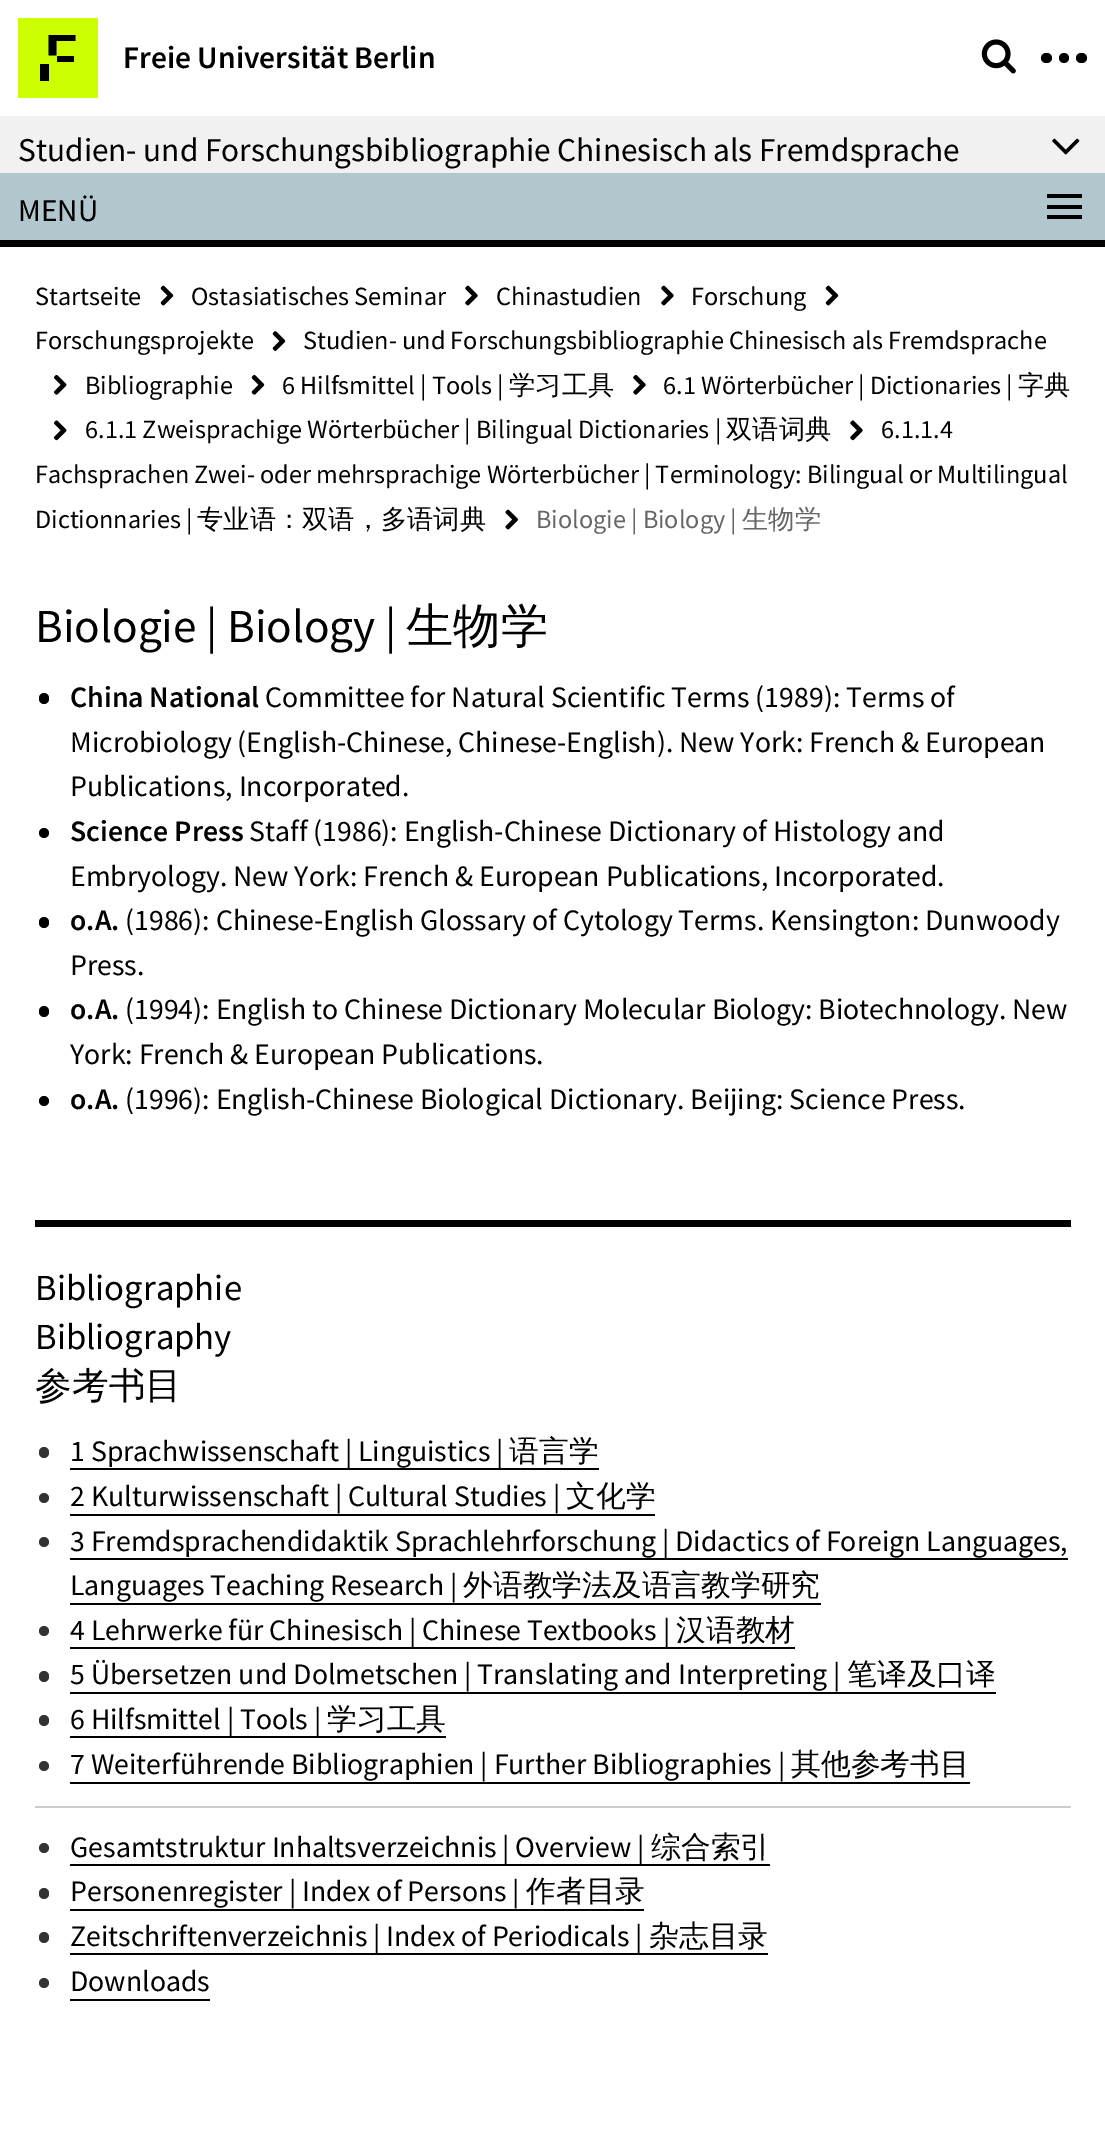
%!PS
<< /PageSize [1105 2138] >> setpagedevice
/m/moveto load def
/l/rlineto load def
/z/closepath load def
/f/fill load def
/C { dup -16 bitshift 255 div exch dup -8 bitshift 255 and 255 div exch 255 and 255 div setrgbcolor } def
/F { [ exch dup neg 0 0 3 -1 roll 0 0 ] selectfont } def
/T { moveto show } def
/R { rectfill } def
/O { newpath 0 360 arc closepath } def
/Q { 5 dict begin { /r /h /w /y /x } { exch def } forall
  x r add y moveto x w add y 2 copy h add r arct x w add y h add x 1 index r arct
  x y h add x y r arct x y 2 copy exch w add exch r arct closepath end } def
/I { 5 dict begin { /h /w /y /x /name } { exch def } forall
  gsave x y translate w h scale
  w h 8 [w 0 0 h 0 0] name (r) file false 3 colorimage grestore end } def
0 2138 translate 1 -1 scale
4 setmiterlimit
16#FFFFFF C
0 0 1105 2138 R
16#CCFF00 C
18 18 80 80 R
16#000000 C
48.5 35 m 27 0 l 0 6 l -19 0 l 0 14.5 l -8 0 l z f
57 56 17 6 R
40 64 9 17 R
/SourceSansPro-SemiBold 31.5 F
(Freie Universität Berlin) 123 68 T
(1.rgb) 981 39 35 35 I
1041 53 11 10 5 Q f
1064 58 5 O f
1076 53 11 10 5 Q f
16#F1F1F1 C
0 116 1105 57 R
/SourceSansPro-Regular 33.25 F
16#000000 C
(Studien- und Forschungsbibliographie Chinesisch als Fremdsprache) 18 161 T
(2.rgb) 1052 138 28 17 I
16#B2C7CD C
0 173 1105 67 R
16#000000 C
0 240 1105 7 R
/SourceSansPro-Regular 31.5 F
(MENÜ) 18 221 T
1047 194 35 4 R
1047 205 35 4 R
1047 215 35 4 R
/SourceSansPro-Regular 26.25 F
(Startseite) 35 305 T
(3.rgb) 160 285 14 21 I
(Ostasiatisches Seminar) 191 305 T
(4.rgb) 465 285 13 21 I
(Chinastudien) 496 305 T
(4.rgb) 661 285 13 21 I
(Forschung) 691 305 T
(3.rgb) 825 285 14 21 I
(Forschungsprojekte) 35 349 T
(5.rgb) 272 331 14 20 I
(Studien- und Forschungsbibliographie Chinesisch als Fremdsprache) 303 349 T
(6.rgb) 54 374 13 21 I
(Bibliographie) 85 394 T
(7.rgb) 251 374 14 21 I
(6 Hilfsmittel | Tools |) 282 394 T
/WenQuanYiZenHei-Medium 26.25 F
(学习工具) 509 394 T
(8.rgb) 633 374 13 21 I
/SourceSansPro-Regular 26.25 F
(6.1 Wörterbücher | Dictionaries |) 663 394 T
/WenQuanYiZenHei-Medium 26.25 F
(字典) 1018 394 T
(9.rgb) 54 420 13 21 I
/SourceSansPro-Regular 26.25 F
(6.1.1 Zweisprachige Wörterbücher | Bilingual Dictionaries |) 85 438 T
/WenQuanYiZenHei-Medium 26.25 F
(双语词典) 726 438 T
(10.rgb) 850 420 13 21 I
/SourceSansPro-Regular 26.25 F
(6.1.1.4) 881 438 T
(Fachsprachen Zwei- oder mehrsprachige Wörterbücher | Terminology: Bilingual or Multilingual) 35 483 T
(Dictionnaries |) 35 528 T
/WenQuanYiZenHei-Medium 26.25 F
(专业语：双语，多语词典) 197 528 T
(11.rgb) 505 509 13 21 I
/SourceSansPro-Regular 26.25 F
16#666666 C
(Biologie | Biology |) 536 528 T
/WenQuanYiZenHei-Medium 26.25 F
(生物学) 742 528 T
/SourceSansPro-Regular 47.25 F
16#000000 C
(Biologie | Biology |) 35 642 T
/WenQuanYiZenHei-Medium 47.25 F
(生物学) 406 642 T
39 693 10 11 5 Q f
/SourceSansPro-SemiBold 29.75 F
(China National) 70 707 T
/SourceSansPro-Regular 29.75 F
(Committee for Natural Scientific Terms \(1989\): Terms of) 265 707 T
(Microbiology \(English-Chinese, Chinese-English\). New York: French & European) 70 752 T
(Publications, Incorporated.) 70 796 T
44 833 5 O f
/SourceSansPro-SemiBold 29.75 F
(Science Press) 70 841 T
/SourceSansPro-Regular 29.75 F
(Staff \(1986\): English-Chinese Dictionary of Histology and) 249 841 T
(Embryology. New York: French & European Publications, Incorporated.) 70 886 T
39 917 10 11 5 Q f
/SourceSansPro-SemiBold 29.75 F
(o.A.) 70 930 T
/SourceSansPro-Regular 29.75 F
(\(1986\): Chinese-English Glossary of Cytology Terms. Kensington: Dunwoody) 125 930 T
(Press.) 70 975 T
39 1006 10 11 5 Q f
/SourceSansPro-SemiBold 29.75 F
(o.A.) 70 1019 T
/SourceSansPro-Regular 29.75 F
(\(1994\): English to Chinese Dictionary Molecular Biology: Biotechnology. New) 125 1019 T
(York: French & European Publications.) 70 1064 T
44 1101 5 O f
/SourceSansPro-SemiBold 29.75 F
(o.A.) 70 1109 T
/SourceSansPro-Regular 29.75 F
(\(1996\): English-Chinese Biological Dictionary. Beijing: Science Press.) 125 1109 T
35 1220 1036 7 R
/SourceSansPro-Regular 36.75 F
(Bibliographie) 35 1300 T
(Bibliography) 35 1349 T
/WenQuanYiZenHei-Medium 36.75 F
(参考书目) 35 1398 T
16#333333 C
39 1447 10 11 5 Q f
16#000000 C
70 1468 529 2 R
/SourceSansPro-Regular 29.75 F
(1 Sprachwissenschaft | Linguistics |) 70 1461 T
/WenQuanYiZenHei-Medium 29.75 F
(语言学) 509 1461 T
16#333333 C
44 1498 5 O f
/SourceSansPro-Regular 29.75 F
16#000000 C
(2 Kulturwissenschaft | Cultural Studies |) 70 1506 T
70 1514 585 2 R
/WenQuanYiZenHei-Medium 29.75 F
(文化学) 566 1506 T
16#333333 C
44 1542 5 O f
16#000000 C
70 1558 998 2 R
/SourceSansPro-Regular 29.75 F
(3 Fremdsprachendidaktik Sprachlehrforschung | Didactics of Foreign Languages,) 70 1551 T
(Languages Teaching Research |) 70 1595 T
70 1603 751 2 R
/WenQuanYiZenHei-Medium 29.75 F
(外语教学法及语言教学研究) 463 1595 T
16#333333 C
44 1631 5 O f
16#000000 C
70 1647 725 2 R
/SourceSansPro-Regular 29.75 F
(4 Lehrwerke für Chinesisch | Chinese Textbooks |) 70 1640 T
/WenQuanYiZenHei-Medium 29.75 F
(汉语教材) 676 1640 T
16#333333 C
39 1671 10 11 5 Q f
/SourceSansPro-Regular 29.75 F
16#000000 C
(5 Übersetzen und Dolmetschen | Translating and Interpreting |) 70 1684 T
70 1692 926 2 R
/WenQuanYiZenHei-Medium 29.75 F
(笔译及口译) 847 1684 T
16#333333 C
39 1715 10 11 5 Q f
16#000000 C
70 1736 376 2 R
/SourceSansPro-Regular 29.75 F
(6 Hilfsmittel | Tools |) 70 1729 T
/WenQuanYiZenHei-Medium 29.75 F
(学习工具) 327 1729 T
16#333333 C
44 1766 5 O f
/SourceSansPro-Regular 29.75 F
16#000000 C
(7 Weiterführende Bibliographien | Further Bibliographies |) 70 1774 T
70 1782 900 2 R
/WenQuanYiZenHei-Medium 29.75 F
(其他参考书目) 791 1774 T
16#CCCCCC C
35 1806 1036 2 R
16#333333 C
44 1848 5 O f
16#000000 C
70 1864 700 2 R
/SourceSansPro-Regular 29.75 F
(Gesamtstruktur Inhaltsverzeichnis | Overview |) 70 1857 T
/WenQuanYiZenHei-Medium 29.75 F
(综合索引) 651 1857 T
16#333333 C
39 1888 10 11 5 Q f
/SourceSansPro-Regular 29.75 F
16#000000 C
(Personenregister | Index of Persons |) 70 1901 T
70 1909 574 2 R
/WenQuanYiZenHei-Medium 29.75 F
(作者目录) 526 1901 T
16#333333 C
39 1932 10 11 5 Q f
16#000000 C
70 1953 698 2 R
/SourceSansPro-Regular 29.75 F
(Zeitschriftenverzeichnis | Index of Periodicals |) 70 1946 T
/WenQuanYiZenHei-Medium 29.75 F
(杂志目录) 649 1946 T
16#333333 C
44 1983 5 O f
/SourceSansPro-Regular 29.75 F
16#000000 C
(Downloads) 70 1991 T
70 1999 140 2 R
showpage
